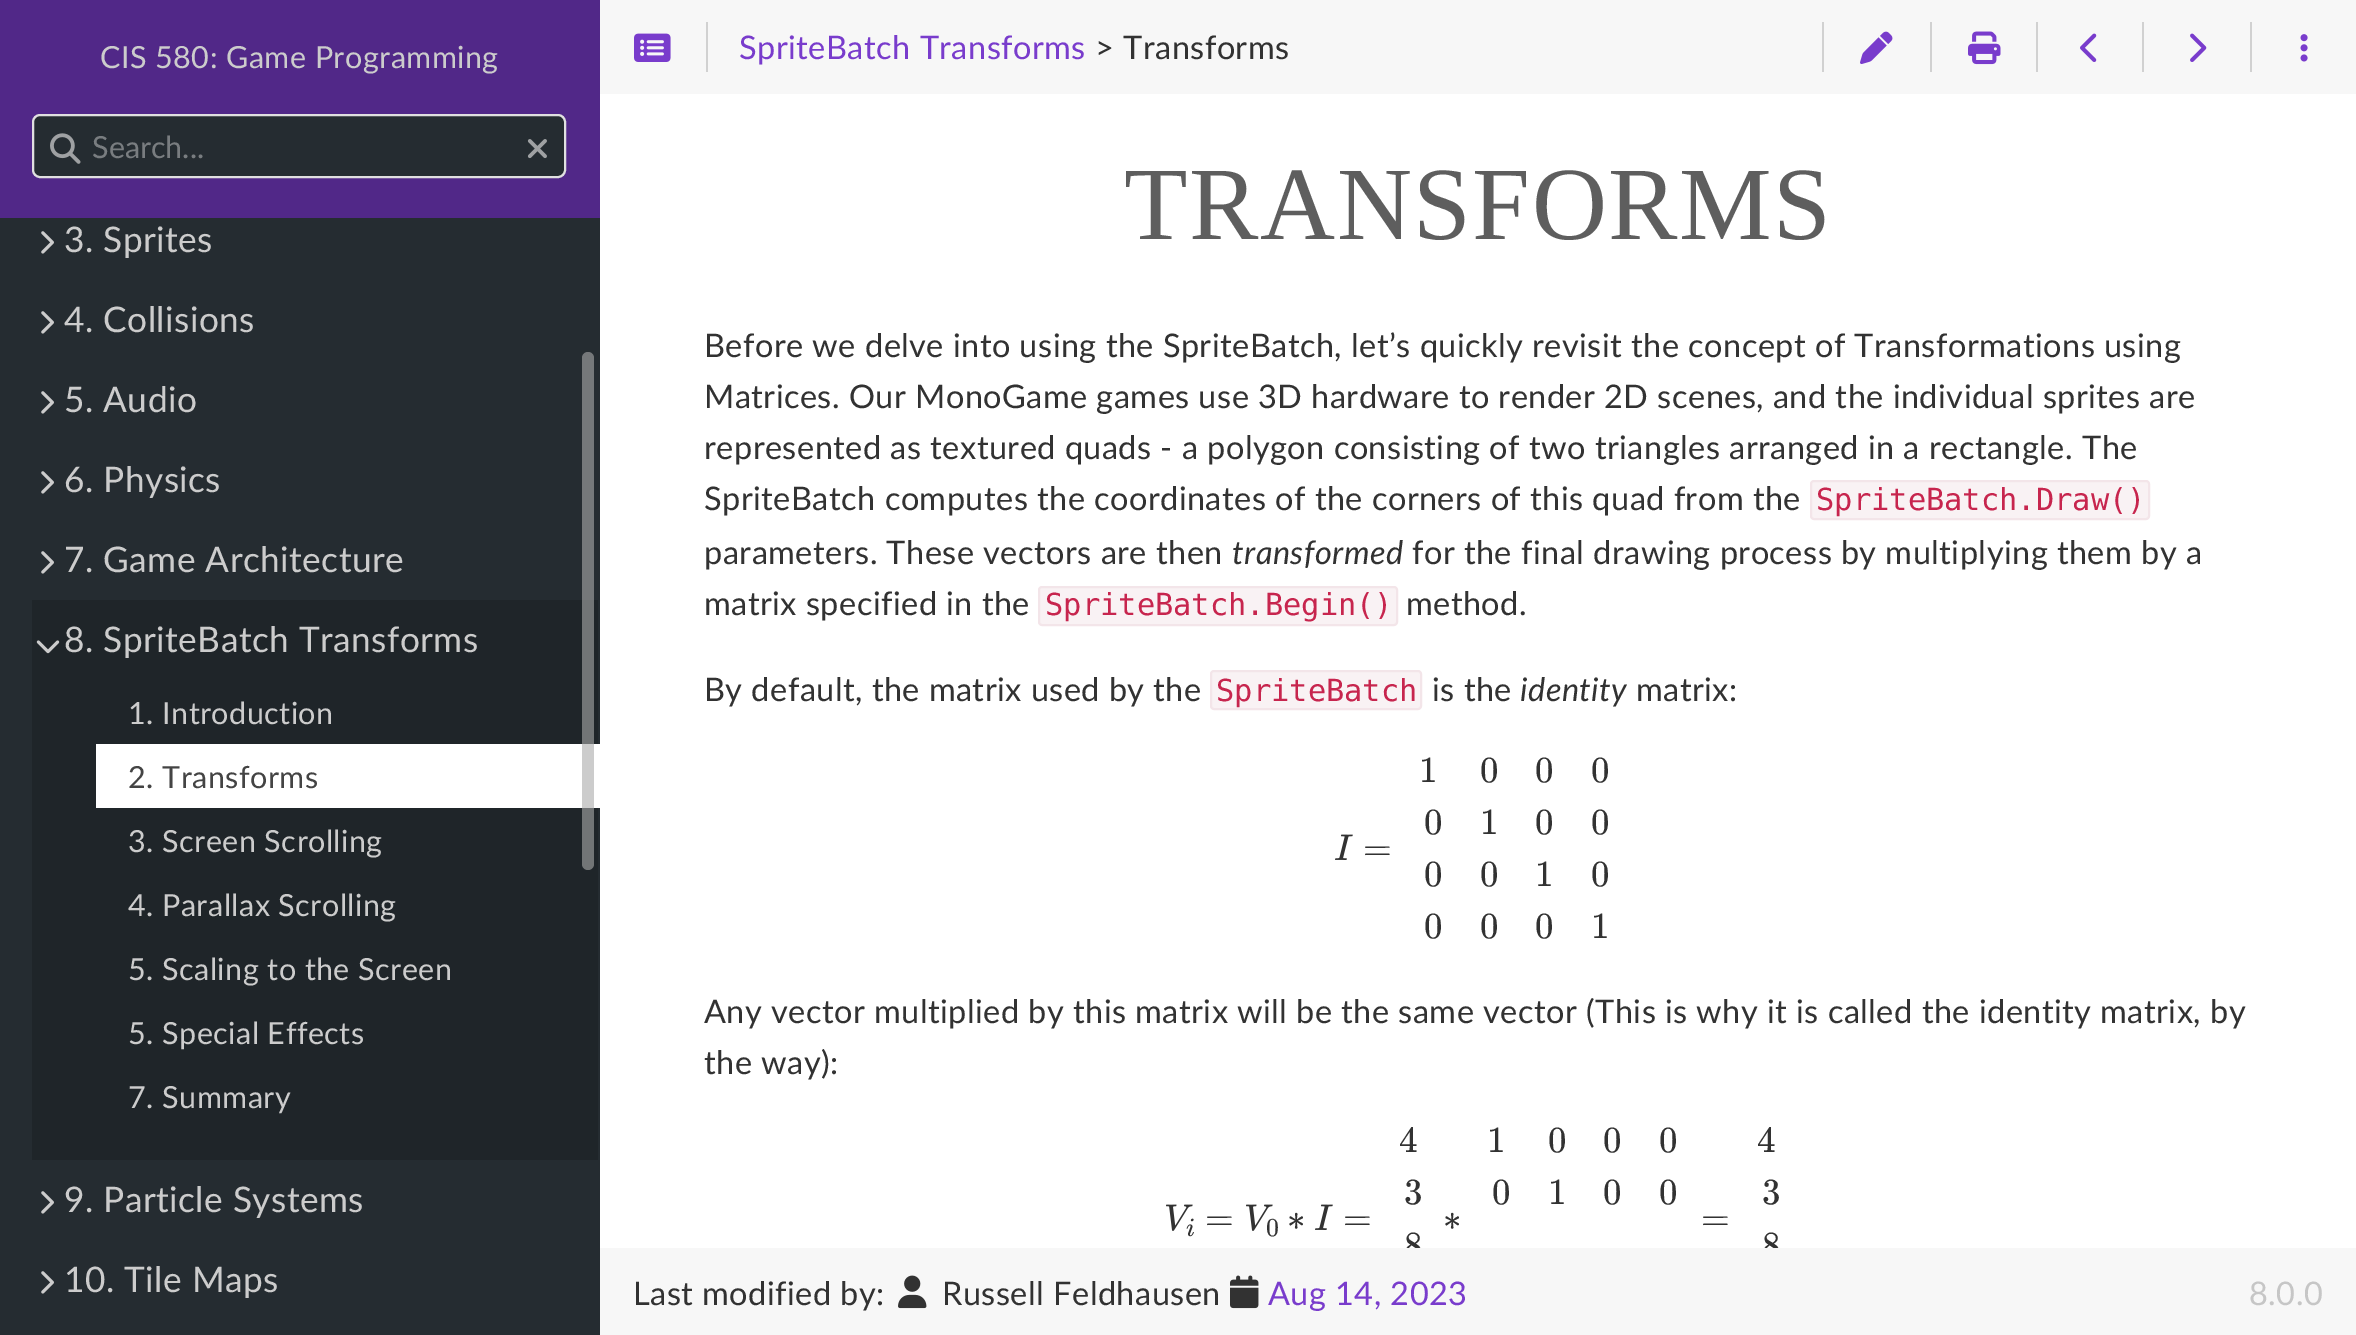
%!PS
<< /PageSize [2356 1335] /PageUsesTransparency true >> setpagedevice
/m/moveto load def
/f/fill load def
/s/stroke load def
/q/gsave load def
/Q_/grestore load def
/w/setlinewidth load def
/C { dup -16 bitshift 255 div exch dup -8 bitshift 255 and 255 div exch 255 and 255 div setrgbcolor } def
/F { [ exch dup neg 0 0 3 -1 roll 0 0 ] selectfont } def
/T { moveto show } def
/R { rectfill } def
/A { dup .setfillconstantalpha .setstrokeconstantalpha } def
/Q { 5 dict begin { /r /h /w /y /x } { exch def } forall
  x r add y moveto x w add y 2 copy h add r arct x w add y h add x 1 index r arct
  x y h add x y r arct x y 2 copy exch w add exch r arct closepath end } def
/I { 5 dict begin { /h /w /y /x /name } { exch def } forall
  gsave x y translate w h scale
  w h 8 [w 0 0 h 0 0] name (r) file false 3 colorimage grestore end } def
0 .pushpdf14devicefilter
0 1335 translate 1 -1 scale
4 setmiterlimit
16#FFFFFF C
0 0 2356 1335 R
16#252C31 C
0 218 600 1117 R
16#512888 C
0 0 600 218 R
/Lato-Regular 30.5 F
16#CCCCCC C
100 68 m .46 0 (CIS 580: Game Programming) ashow
16#252C31 C
33 115 532 62 7 Q q f Q_
16#E0E0E0 C
2 w
s
(1.rgb) 50 133 31 31 I
16#797D80 C
(Search...) 92 158 T
(2.rgb) 527 139 20 20 I
(3.rgb) 41 231 13 23 I
/Lato-Regular 35.25 F
16#CCCCCC C
64 252 m .46 0 (3. Sprites) ashow
(3.rgb) 41 311 13 23 I
64 332 m .46 0 (4. Collisions) ashow
(3.rgb) 41 391 13 23 I
64 412 m .46 0 (5. Audio) ashow
(3.rgb) 41 471 13 23 I
64 492 m .46 0 (6. Physics) ashow
(3.rgb) 41 551 13 23 I
64 572 m .46 0 (7. Game Architecture) ashow
16#1F2529 C
32 600 566 560 R
(4.rgb) 36 640 24 14 I
16#CCCCCC C
64 652 m .46 0 (8. SpriteBatch Transforms) ashow
/Lato-Regular 30.5 F
128 724 m .46 0 (1. Introduction) ashow
16#FFFFFF C
96 744 504 64 R
16#444444 C
128 788 m .46 0 (2. Transforms) ashow
16#CCCCCC C
128 852 m .46 0 (3. Screen Scrolling) ashow
128 916 m .46 0 (4. Parallax Scrolling) ashow
128 980 m .46 0 (5. Scaling to the Screen) ashow
128 1044 m .46 0 (5. Special Effects) ashow
128 1108 m .46 0 (7. Summary) ashow
(3.rgb) 41 1191 13 23 I
/Lato-Regular 35.25 F
64 1212 m .46 0 (9. Particle Systems) ashow
(3.rgb) 41 1271 13 23 I
64 1292 m .46 0 (10. Tile Maps) ashow
0.6 A
16#AAAAAA C
582 352 12 518 6 Q f
1 A
16#F7F7F7 C
600 0 1756 94 R
16#D1D1D1 C
706 22 2 50 R
(5.rgb) 634 33 37 29 I
/Lato-Regular 32.5 F
16#793CCC C
739 59 m .46 0 (SpriteBatch Transforms) ashow
16#323232 C
1095 59 m .46 0 (> Transforms) ashow
16#D1D1D1 C
1822 22 2 50 R
(6.rgb) 1860 31 33 33 I
1930 22 2 50 R
(7.rgb) 1968 31 33 34 I
2036 22 2 50 R
(8.rgb) 2080 33 17 29 I
2142 22 2 50 R
(9.rgb) 2190 33 17 29 I
2250 22 2 50 R
(10.rgb) 2300 34 8 28 I
/LiberationSerif-Regular 104 F
16#5E5E5E C
1124 239 m 1.5 0 (TRANSFORMS) ashow
/Lato-Regular 32.5 F
16#323232 C
704 357 m .46 0 (Before we delve into using the SpriteBatch, let’s quickly revisit the concept of Transformations using) ashow
704 408 m .46 0 (Matrices. Our MonoGame games use 3D hardware to render 2D scenes, and the individual sprites are) ashow
704 459 m .46 0 (represented as textured quads - a polygon consisting of two triangles arranged in a rectangle. The) ashow
704 510 m .46 0 (SpriteBatch computes the coordinates of the corners of this quad from the) ashow
16#F9F2F4 C
1811 481 338 38 3 Q q f Q_
16#F3E5E9 C
s
/DejaVuSansMono-Regular 30.4 F
16#C7254E C
(SpriteBatch.Draw\(\)) 1816 510 T
/Lato-Regular 32.5 F
16#323232 C
704 564 m .46 0 (parameters. These vectors are then) ashow
/Lato-Italic 32.5 F
1232 564 m .46 0 (transformed) ashow
/Lato-Regular 32.5 F
1412 564 m .46 0 (for the final drawing process by multiplying them by a) ashow
704 615 m .46 0 (matrix specified in the) ashow
16#F9F2F4 C
1039 587 358 38 3 Q q f Q_
16#F3E5E9 C
s
/DejaVuSansMono-Regular 30.4 F
16#C7254E C
(SpriteBatch.Begin\(\)) 1045 615 T
/Lato-Regular 32.5 F
16#323232 C
1406 615 m .46 0 (method.) ashow
704 701 m .46 0 (By default, the matrix used by the) ashow
16#F9F2F4 C
1211 671 210 38 3 Q q f Q_
16#F3E5E9 C
s
/DejaVuSansMono-Regular 30.4 F
16#C7254E C
(SpriteBatch) 1216 701 T
/Lato-Regular 32.5 F
16#323232 C
1432 701 m .46 0 (is the) ashow
/Lato-Italic 32.5 F
1520 701 m .46 0 (identity) ashow
/Lato-Regular 32.5 F
1636 701 m .46 0 (matrix:) ashow
(11.rgb) 1335 834 18 26 I
/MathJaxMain-Regular 37 F
(=) 1363 860 T
(1) 1419 782 T
(0) 1480 782 T
(0) 1535 782 T
(0) 1591 782 T
(0) 1424 834 T
(1) 1480 834 T
(0) 1535 834 T
(0) 1591 834 T
(0) 1424 886 T
(0) 1480 886 T
(1) 1535 886 T
(0) 1591 886 T
(0) 1424 938 T
(0) 1480 938 T
(0) 1535 938 T
(1) 1591 938 T
/Lato-Regular 32.5 F
704 1023 m .46 0 (Any vector multiplied by this matrix will be the same vector \(This is why it is called the identity matrix, by) ashow
704 1074 m .46 0 (the way\):) ashow
/MathJaxMain-Regular 37 F
(4) 1399 1152 T
(3) 1404 1204 T
q
600 96 1756 1152 rectclip
(8) 1404 1257 T
Q_
(1) 1487 1152 T
(0) 1548 1152 T
(0) 1603 1152 T
(0) 1659 1152 T
(0) 1492 1204 T
(1) 1548 1204 T
(0) 1603 1204 T
(0) 1659 1204 T
(4) 1757 1152 T
(3) 1762 1204 T
q
600 96 1756 1152 rectclip
(8) 1762 1257 T
Q_
(12.rgb) 1166 1204 27 27 I
(13.rgb) 1186 1218 8 19 I
(=) 1205 1230 T
(12.rgb) 1246 1204 27 27 I
/MathJaxMain-Regular 26 F
(0) 1266 1236 T
/MathJaxMain-Regular 37 F
(∗) 1287 1230 T
(11.rgb) 1315 1204 18 26 I
(=) 1343 1230 T
(∗) 1443 1230 T
(=) 1701 1230 T
16#F7F7F7 C
600 1248 1756 87 R
/Lato-Regular 32.5 F
16#323232 C
633 1305 m .46 0 (Last modified by:) ashow
(14.rgb) 898 1275 29 34 I
942 1305 m .46 0 (Russell Feldhausen) ashow
(15.rgb) 1230 1275 29 34 I
16#793CCC C
1268 1305 m .46 0 (Aug 14, 2023) ashow
16#C6C6C6 C
2249 1305 m .46 0 (8.0.0) ashow
.poppdf14devicefilter showpage
